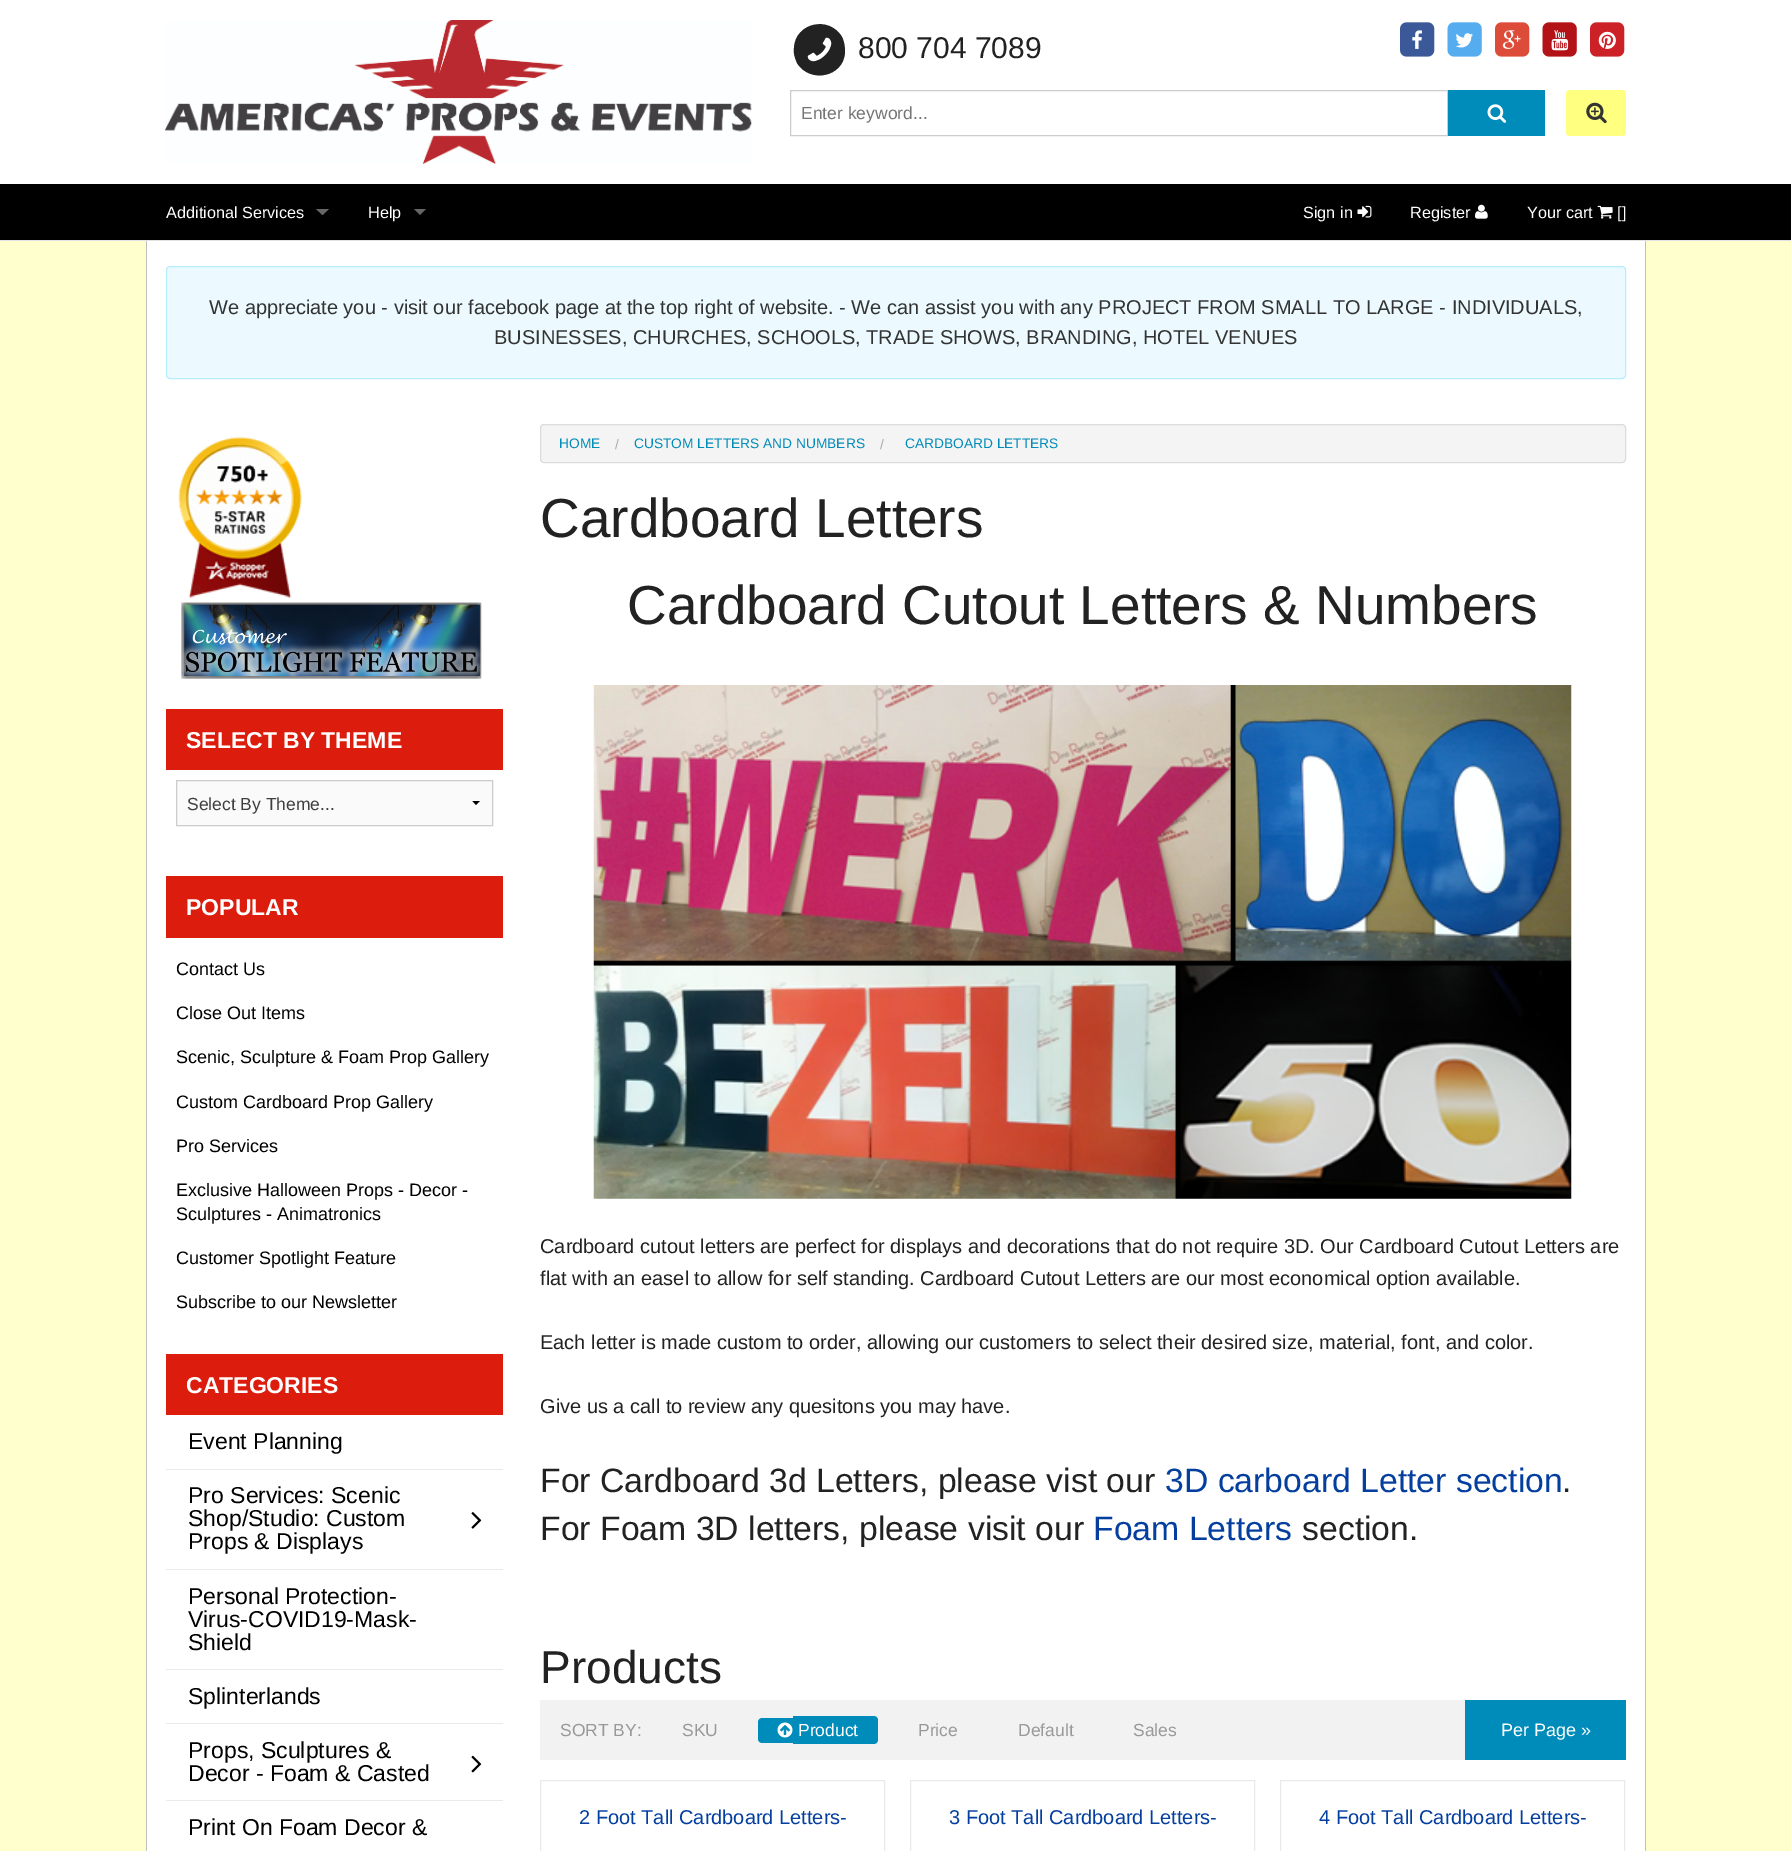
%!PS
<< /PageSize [1791 1851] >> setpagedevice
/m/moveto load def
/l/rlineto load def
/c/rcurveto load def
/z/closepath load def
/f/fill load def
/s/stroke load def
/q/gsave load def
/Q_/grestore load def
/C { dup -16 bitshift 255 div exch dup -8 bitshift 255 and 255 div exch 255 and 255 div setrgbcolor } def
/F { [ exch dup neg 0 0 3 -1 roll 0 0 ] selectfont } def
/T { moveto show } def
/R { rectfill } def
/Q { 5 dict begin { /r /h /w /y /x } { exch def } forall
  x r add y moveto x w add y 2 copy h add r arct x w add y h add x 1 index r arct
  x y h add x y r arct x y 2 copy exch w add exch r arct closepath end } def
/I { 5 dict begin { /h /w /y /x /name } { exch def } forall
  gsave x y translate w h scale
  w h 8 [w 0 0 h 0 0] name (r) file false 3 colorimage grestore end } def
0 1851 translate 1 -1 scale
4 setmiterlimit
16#FFFFCE C
0 0 1791 1851 R
16#E2E2E2 C
0 240 1791 1 R
16#FFFFFF C
0 0 1791 184 R
(1.rgb) 165 20 587 144 I
16#222222 C
842 37 m 2 4 3 9 3 15 c -1 25 -35 32 -48 11 c -2 -5 -4 -10 -3 -15 c 1 -25 35 -33 48 -11 c z f
(2.rgb) 807 37 25 25 I
/LiberationSans-Regular 30 F
(800 704 7089) 858 58 T
(3.rgb) 1400 22 35 35 I
(4.rgb) 1412 30 10 19 I
(5.rgb) 1447 22 35 35 I
(6.rgb) 1455 33 18 15 I
(7.rgb) 1495 22 35 35 I
(8.rgb) 1502 30 19 19 I
(9.rgb) 1542 22 35 35 I
(10.rgb) 1551 30 18 21 I
(11.rgb) 1590 22 35 35 I
(12.rgb) 1598 31 18 18 I
16#CCCCCC C
790.5 90.5 657 45 rectstroke
/LiberationSans-Regular 17.5 F
16#757575 C
(Enter keyword...) 801 119 T
16#008CBA C
1448 90 97 46 R
(13.rgb) 1487 104 20 19 I
16#FFFF80 C
1566 90 60 46 4 Q f
(14.rgb) 1586 102 21 22 I
16#000000 C
0 184 1791 56 R
/LiberationSans-Regular 16.25 F
16#FFFFFF C
(Additional Services) 166 218 T
16#666666 C
316 209 m 13 0 l -6.5 6 l z f
16#FFFFFF C
(Help) 368 218 T
16#666666 C
414 209 m 12 0 l -6 6 l z f
16#FFFFFF C
(Sign in) 1303 218 T
(15.rgb) 1357 205 15 13 I
(Register) 1410 218 T
(16.rgb) 1475 204 13 15 I
(Your cart) 1527 218 T
(17.rgb) 1597 205 16 14 I
([]) 1617 218 T
147 241 1498 1610 R
16#BFBFBF C
1645 241 1 1610 R
146 241 1 1610 R
16#ECFAFF C
166.5 266.5 1459 112 3.5 Q q f Q_
16#B6EDFF C
s
/LiberationSans-Regular 20 F
16#333333 C
(We appreciate you - visit our facebook page at the top right of website. - We can assist you with any PROJECT FROM SMALL TO LARGE - INDIVIDUALS,) 209 314 T
(BUSINESSES, CHURCHES, SCHOOLS, TRADE SHOWS, BRANDING, HOTEL VENUES) 494 344 T
(18.rgb) 178 437 124 161 I
(19.rgb) 181 602 301 77 I
16#DC1C0C C
166 709 337 61 R
/LiberationSans-Bold 23 F
16#FFFFFF C
(SELECT BY THEME) 186 748 T
16#FAFAFA C
177 781 315 44 R
16#000000 C
480 801 m -4 4 l -3.5 -4 l z f
16#CCCCCC C
176.5 780.5 316 45 rectstroke
/LiberationSans-Regular 17.5 F
16#3F3F3F C
(Select By Theme...) 187 810 T
16#DC1C0C C
166 876 337 62 R
/LiberationSans-Bold 23 F
16#FFFFFF C
(POPULAR) 186 915 T
/LiberationSans-Regular 18 F
16#000000 C
(Contact Us) 176 975 T
(Close Out Items) 176 1019 T
(Scenic, Sculpture & Foam Prop Gallery) 176 1063 T
(Custom Cardboard Prop Gallery) 176 1108 T
(Pro Services) 176 1152 T
(Exclusive Halloween Props - Decor -) 176 1196 T
(Sculptures - Animatronics) 176 1220 T
(Customer Spotlight Feature) 176 1264 T
(Subscribe to our Newsletter) 176 1308 T
16#DC1C0C C
166 1354 337 61 R
/LiberationSans-Bold 23 F
16#FFFFFF C
(CATEGORIES) 186 1393 T
/LiberationSans-Regular 23 F
16#000000 C
(Event Planning) 188 1449 T
16#EAEAEA C
166 1469 337 1 R
16#000000 C
(Pro Services: Scenic) 188 1503 T
(Shop/Studio: Custom) 188 1526 T
(20.rgb) 471 1512 11 17 I
(Props & Displays) 188 1549 T
16#EAEAEA C
166 1569 337 1 R
16#000000 C
(Personal Protection-) 188 1604 T
(Virus-COVID19-Mask-) 188 1627 T
(Shield) 188 1650 T
16#EAEAEA C
166 1669 337 1 R
16#000000 C
(Splinterlands) 188 1704 T
16#EAEAEA C
166 1723 337 1 R
16#000000 C
(Props, Sculptures &) 188 1758 T
(21.rgb) 471 1755 11 18 I
(Decor - Foam & Casted) 188 1781 T
16#EAEAEA C
166 1800 337 1 R
16#000000 C
(Print On Foam Decor &) 188 1835 T
16#F4F4F4 C
540.5 424.5 1085 38 3.5 Q q f Q_
16#DCDCDC C
s
/LiberationSans-Regular 13.75 F
16#008CBA C
(HOME) 559 448 T
16#AAAAAA C
(/) 615 449 T
16#008CBA C
(CUSTOM LETTERS AND NUMBERS) 634 448 T
16#AAAAAA C
(/) 880 449 T
16#008CBA C
(CARDBOARD LETTERS) 905 448 T
/LiberationSans-Regular 55 F
16#222222 C
(Cardboard Letters) 540 537 T
(Cardboard Cutout Letters & Numbers) 627 624 T
(22.rgb) 593 685 979 514 I
/LiberationSans-Regular 20 F
(Cardboard cutout letters are perfect for displays and decorations that do not require 3D. Our Cardboard Cutout Letters are) 540 1253 T
(flat with an easel to allow for self standing. Cardboard Cutout Letters are our most economical option available.) 540 1285 T
(Each letter is made custom to order, allowing our customers to select their desired size, material, font, and color.) 540 1349 T
(Give us a call to review any quesitons you may have.) 540 1413 T
/LiberationSans-Regular 33.75 F
(For Cardboard 3d Letters, please vist our) 540 1492 T
16#043FA0 C
(3D carboard Letter section) 1165 1492 T
16#222222 C
(.) 1562 1492 T
(For Foam 3D letters, please visit our) 540 1540 T
16#043FA0 C
(Foam Letters) 1093 1540 T
16#222222 C
(section.) 1302 1540 T
/LiberationSans-Regular 46 F
(Products) 540 1683 T
16#F2F2F2 C
540 1700 925 60 R
/LiberationSans-Regular 17.5 F
16#999999 C
(SORT BY:) 560 1736 T
(SKU) 682 1736 T
16#008CBA C
762 1718 m 31 0 l 0 25 l -31 0 l -2 0 -4 -2 -4 -4 c 0 -17 l 0 -2 2 -4 4 -4 c z f
793 1716 m 81 0 l 2 0 4 2 4 4 c 0 20 l 0 2 -2 4 -4 4 c -81 0 l z f
(23.rgb) 777 1722 16 16 I
16#FFFFFF C
(Product) 798 1736 T
16#999999 C
(Price) 918 1736 T
(Default) 1018 1736 T
(Sales) 1133 1736 T
16#008CBA C
1465 1700 161 60 R
/LiberationSans-Regular 18 F
16#FFFFFF C
(Per Page ») 1501 1736 T
16#EAEAEA C
540.5 1780.5 344 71 rectstroke
/LiberationSans-Regular 20 F
16#043FA0 C
(2 Foot Tall Cardboard Letters-) 579 1824 T
16#EAEAEA C
910.5 1780.5 344 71 rectstroke
16#043FA0 C
(3 Foot Tall Cardboard Letters-) 949 1824 T
16#EAEAEA C
1280.5 1780.5 344 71 rectstroke
16#043FA0 C
(4 Foot Tall Cardboard Letters-) 1319 1824 T
showpage
